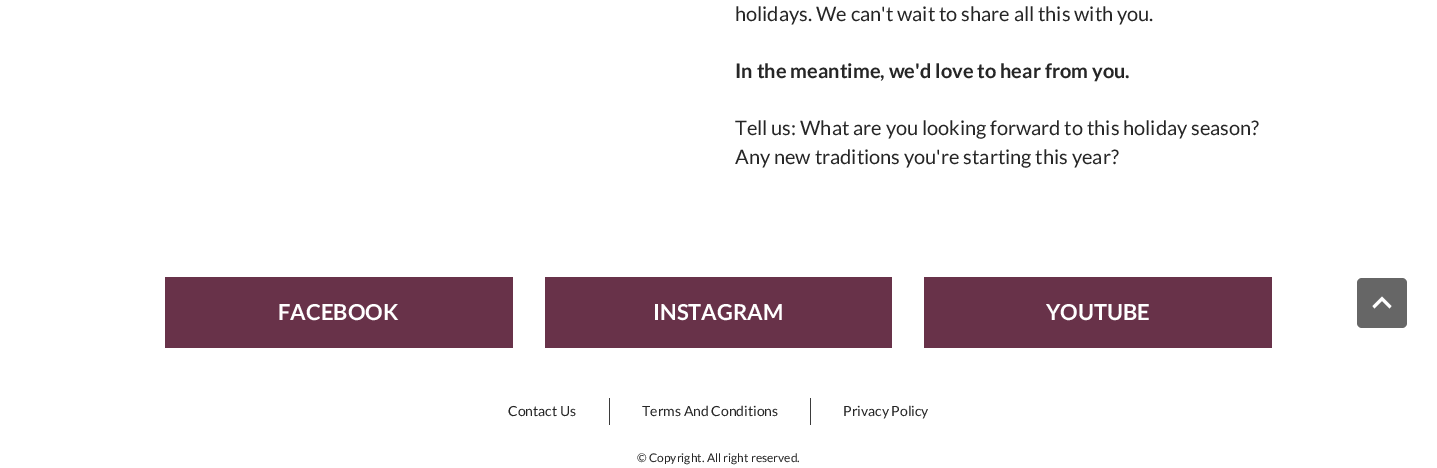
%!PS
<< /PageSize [1437 468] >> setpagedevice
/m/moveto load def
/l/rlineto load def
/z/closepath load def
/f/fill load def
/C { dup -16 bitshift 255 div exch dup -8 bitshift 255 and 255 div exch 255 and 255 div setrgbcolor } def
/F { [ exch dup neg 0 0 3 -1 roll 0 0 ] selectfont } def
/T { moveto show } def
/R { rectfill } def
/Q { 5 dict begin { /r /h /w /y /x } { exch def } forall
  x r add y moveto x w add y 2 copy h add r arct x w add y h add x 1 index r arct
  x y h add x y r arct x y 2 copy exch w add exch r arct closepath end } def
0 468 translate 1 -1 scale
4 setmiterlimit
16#FFFFFF C
0 0 1437 468 R
/Lato-Regular 20 F
16#262626 C
(holidays. We can't wait to share all this with you.) 735 21 T
/Lato-Bold 20 F
(In the meantime, we'd love to hear from you.) 735 78 T
/Lato-Regular 20 F
(Tell us: What are you looking forward to this holiday season?) 735 135 T
(Any new traditions you're starting this year?) 735 164 T
16#683249 C
165 277 348 71 R
/Lato-Bold 22 F
16#FFFFFF C
(FACEBOOK) 278 320 T
16#683249 C
545 277 347 71 R
16#FFFFFF C
(INSTAGRAM) 653 320 T
16#683249 C
924 277 348 71 R
16#FFFFFF C
(YOUTUBE) 1046 320 T
/Lato-Regular 14 F
16#262626 C
(Contact Us) 508 416 T
16#3B3B3B C
609 398 1 27 R
16#262626 C
(Terms And Conditions) 642 416 T
16#3B3B3B C
810 398 1 27 R
16#262626 C
(Privacy Policy) 843 416 T
/Lato-Regular 12 F
(© Copyright. All right reserved.) 637 462 T
16#666666 C
1357 278 50 50 5 Q f
16#FFFFFF C
1374.5 308.5 m 7.5 -7.5 l 7.5 7.5 l 2 -2.5 l -9.5 -9.5 l -9.5 9.5 l z f
showpage
